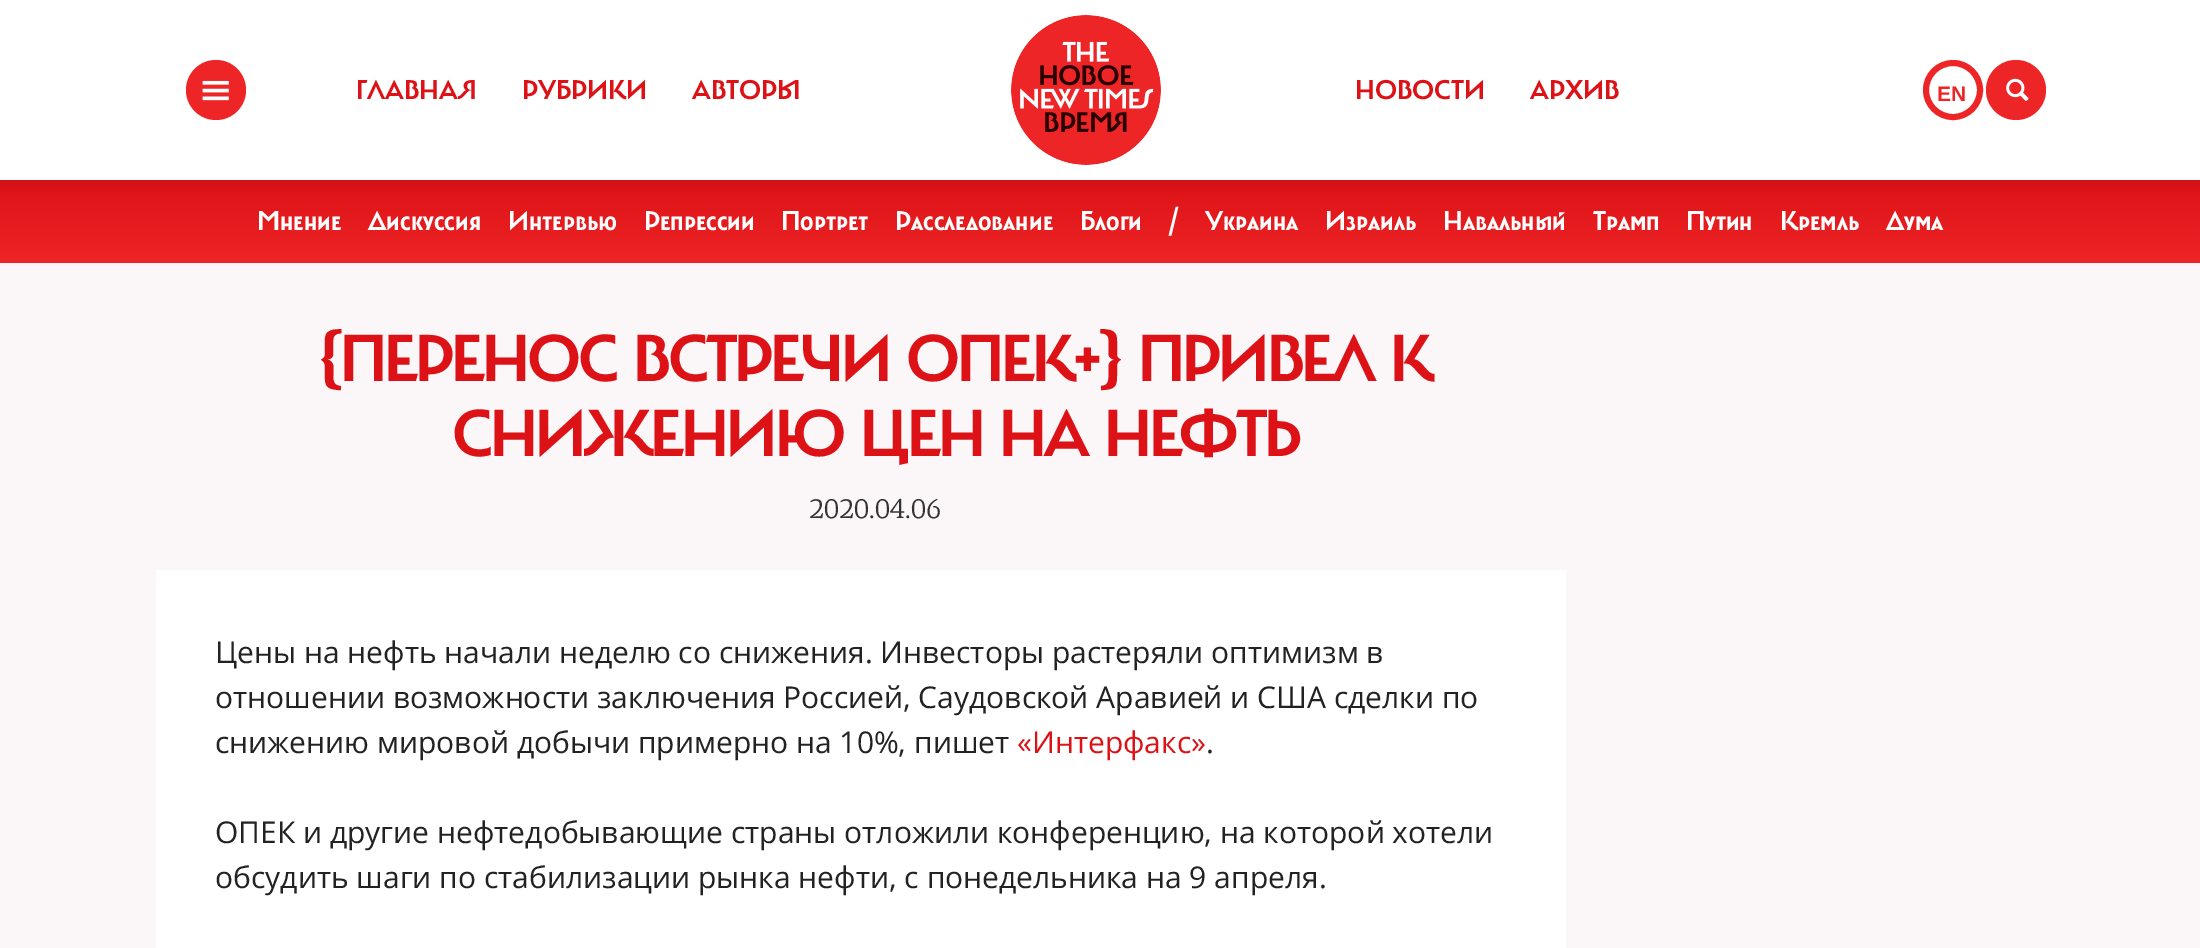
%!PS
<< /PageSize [2200 948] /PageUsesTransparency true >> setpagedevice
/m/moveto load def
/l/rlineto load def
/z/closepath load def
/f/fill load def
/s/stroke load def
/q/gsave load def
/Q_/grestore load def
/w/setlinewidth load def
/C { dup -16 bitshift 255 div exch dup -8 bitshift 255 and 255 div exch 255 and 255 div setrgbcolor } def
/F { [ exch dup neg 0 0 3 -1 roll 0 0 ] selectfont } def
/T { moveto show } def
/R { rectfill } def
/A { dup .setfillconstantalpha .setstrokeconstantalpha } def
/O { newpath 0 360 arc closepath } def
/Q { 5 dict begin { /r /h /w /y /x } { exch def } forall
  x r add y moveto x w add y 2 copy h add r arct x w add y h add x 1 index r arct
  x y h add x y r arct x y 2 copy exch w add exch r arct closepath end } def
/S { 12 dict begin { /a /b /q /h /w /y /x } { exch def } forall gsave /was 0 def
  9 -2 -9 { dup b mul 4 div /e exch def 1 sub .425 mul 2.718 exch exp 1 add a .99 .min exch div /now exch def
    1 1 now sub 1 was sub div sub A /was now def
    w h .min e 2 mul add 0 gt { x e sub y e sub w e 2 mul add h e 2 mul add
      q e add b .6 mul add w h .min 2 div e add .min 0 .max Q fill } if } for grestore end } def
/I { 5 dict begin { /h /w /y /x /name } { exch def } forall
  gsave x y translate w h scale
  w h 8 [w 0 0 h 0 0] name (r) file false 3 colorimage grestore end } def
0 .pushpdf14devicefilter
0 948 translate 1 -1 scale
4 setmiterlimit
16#FBF7F8 C
0 0 2200 948 R
q 0 180 m 2200 0 l 0 83 l -2200 0 l z clip newpath
<< /ShadingType 2 /ColorSpace /DeviceRGB /Coords [1100 263 1100 180] /Extend [true true] /Function << /FunctionType 2 /Domain [0 1] /C0 [.933 .145 .153] /C1 [.863 .071 .086] /N 1 >> >> shfill Q_
16#1C1C1C C
0 6 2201 180 0 4.5 .05 S
16#FFFFFF C
0 0 2200 180 R
16#EE2527 C
216 90 30 O f
(1.rgb) 202 80 27 21 I
/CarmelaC-Regular 27 F
16#DC1216 C
(ГЛАВНАЯ) 356 99 T
(РУБРИКИ) 522 99 T
(АВТОРЫ) 692 99 T
(2.rgb) 1011 15 150 150 I
(НОВОСТИ) 1355 99 T
(АРХИВ) 1530 99 T
16#EE2527 C
6 w
1953 90 27 O s
/LiberationSans-Bold 21 F
(EN) 1937 101 T
2016 90 30 O f
(3.rgb) 2006 78 23 23 I
/CarmelaC-Regular 27 F
16#FFFFFF C
(Мнение) 257 230 T
(Дискуссия) 368 230 T
(Интервью) 508 230 T
(Репрессии) 644 230 T
(Портрет) 781 230 T
(Расследование) 895 230 T
(Блоги) 1080 230 T
(/) 1169 230 T
(Украина) 1205 230 T
(Израиль) 1325 230 T
(Навальный) 1443 230 T
(Трамп) 1593 230 T
(Путин) 1686 230 T
(Кремль) 1780 230 T
(Дума) 1886 230 T
/CarmelaC-Regular 66 F
16#DC1216 C
318 381 m -3 0 ({ПЕРЕНОС ВСТРЕЧИ ОПЕК+} ПРИВЕЛ К) ashow
452 456 m -3 0 (СНИЖЕНИЮ ЦЕН НА НЕФТЬ) ashow
/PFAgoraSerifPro-Regular 27 F
16#333333 C
(2020.04.06) 809 518 T
16#FFFFFF C
156 570 1410 378 R
/OpenSans-Regular 30 F
16#222222 C
(Цены на нефть начали неделю со снижения. Инвесторы растеряли оптимизм в) 215 663 T
(отношении возможности заключения Россией, Саудовской Аравией и США сделки по) 215 708 T
(снижению мировой добычи примерно на 10%, пишет) 215 753 T
16#DC1216 C
(«Интерфакс») 1017 753 T
16#222222 C
(.) 1206 753 T
(ОПЕК и другие нефтедобывающие страны отложили конференцию, на которой хотели) 215 843 T
(обсудить шаги по стабилизации рынка нефти, с понедельника на 9 апреля.) 215 888 T
.poppdf14devicefilter showpage
